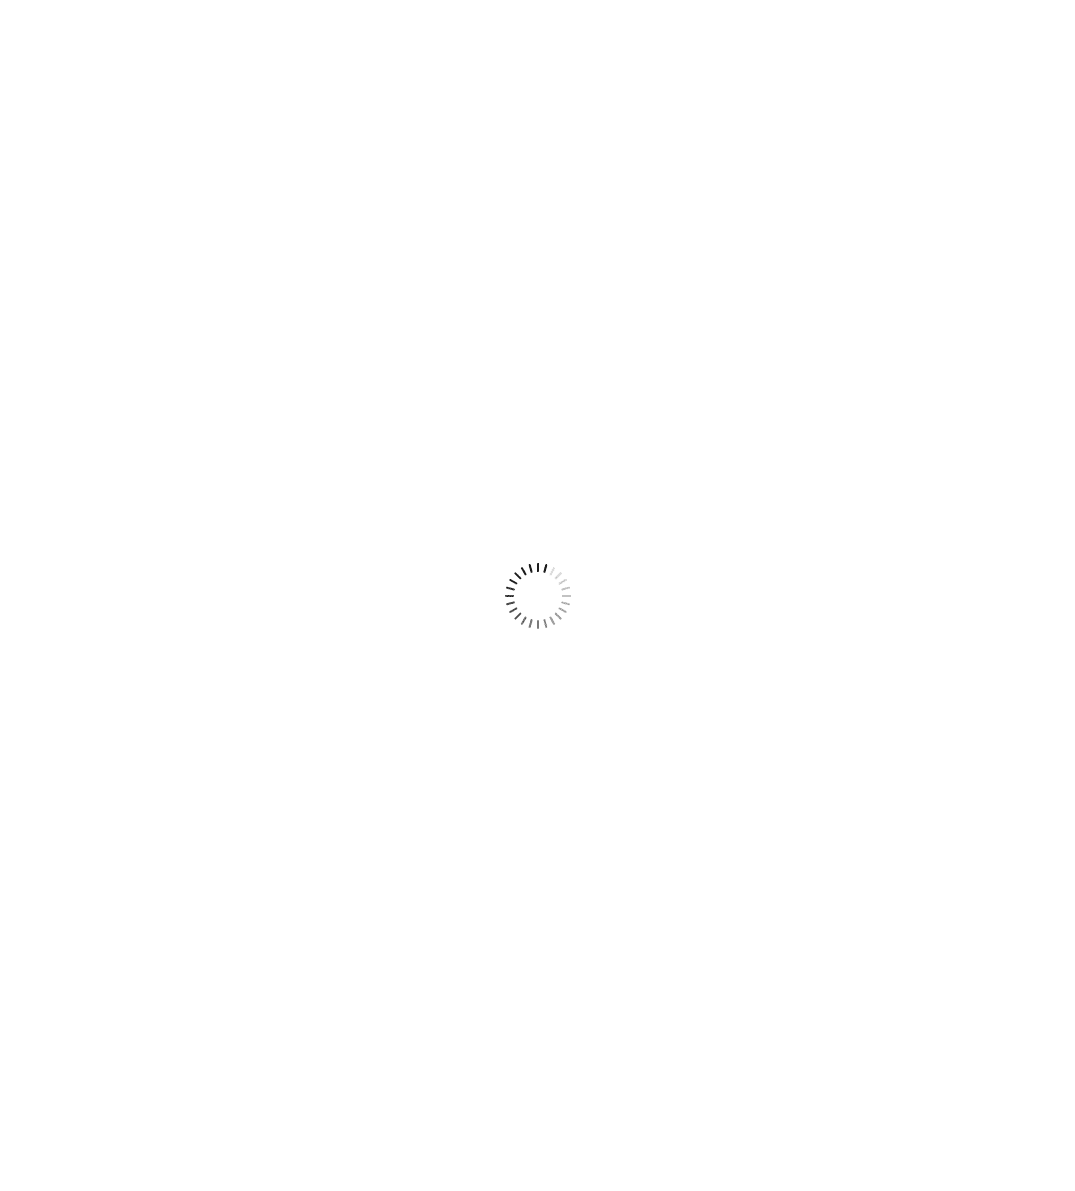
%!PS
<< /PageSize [1075 1191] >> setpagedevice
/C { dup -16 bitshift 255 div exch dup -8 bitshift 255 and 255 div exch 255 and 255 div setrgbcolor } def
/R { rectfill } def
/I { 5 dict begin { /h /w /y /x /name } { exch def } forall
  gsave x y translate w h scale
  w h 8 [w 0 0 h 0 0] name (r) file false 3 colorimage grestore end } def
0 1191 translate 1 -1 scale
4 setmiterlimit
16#FFFFFF C
0 0 1075 1191 R
(1.rgb) 505 563 66 66 I
showpage
